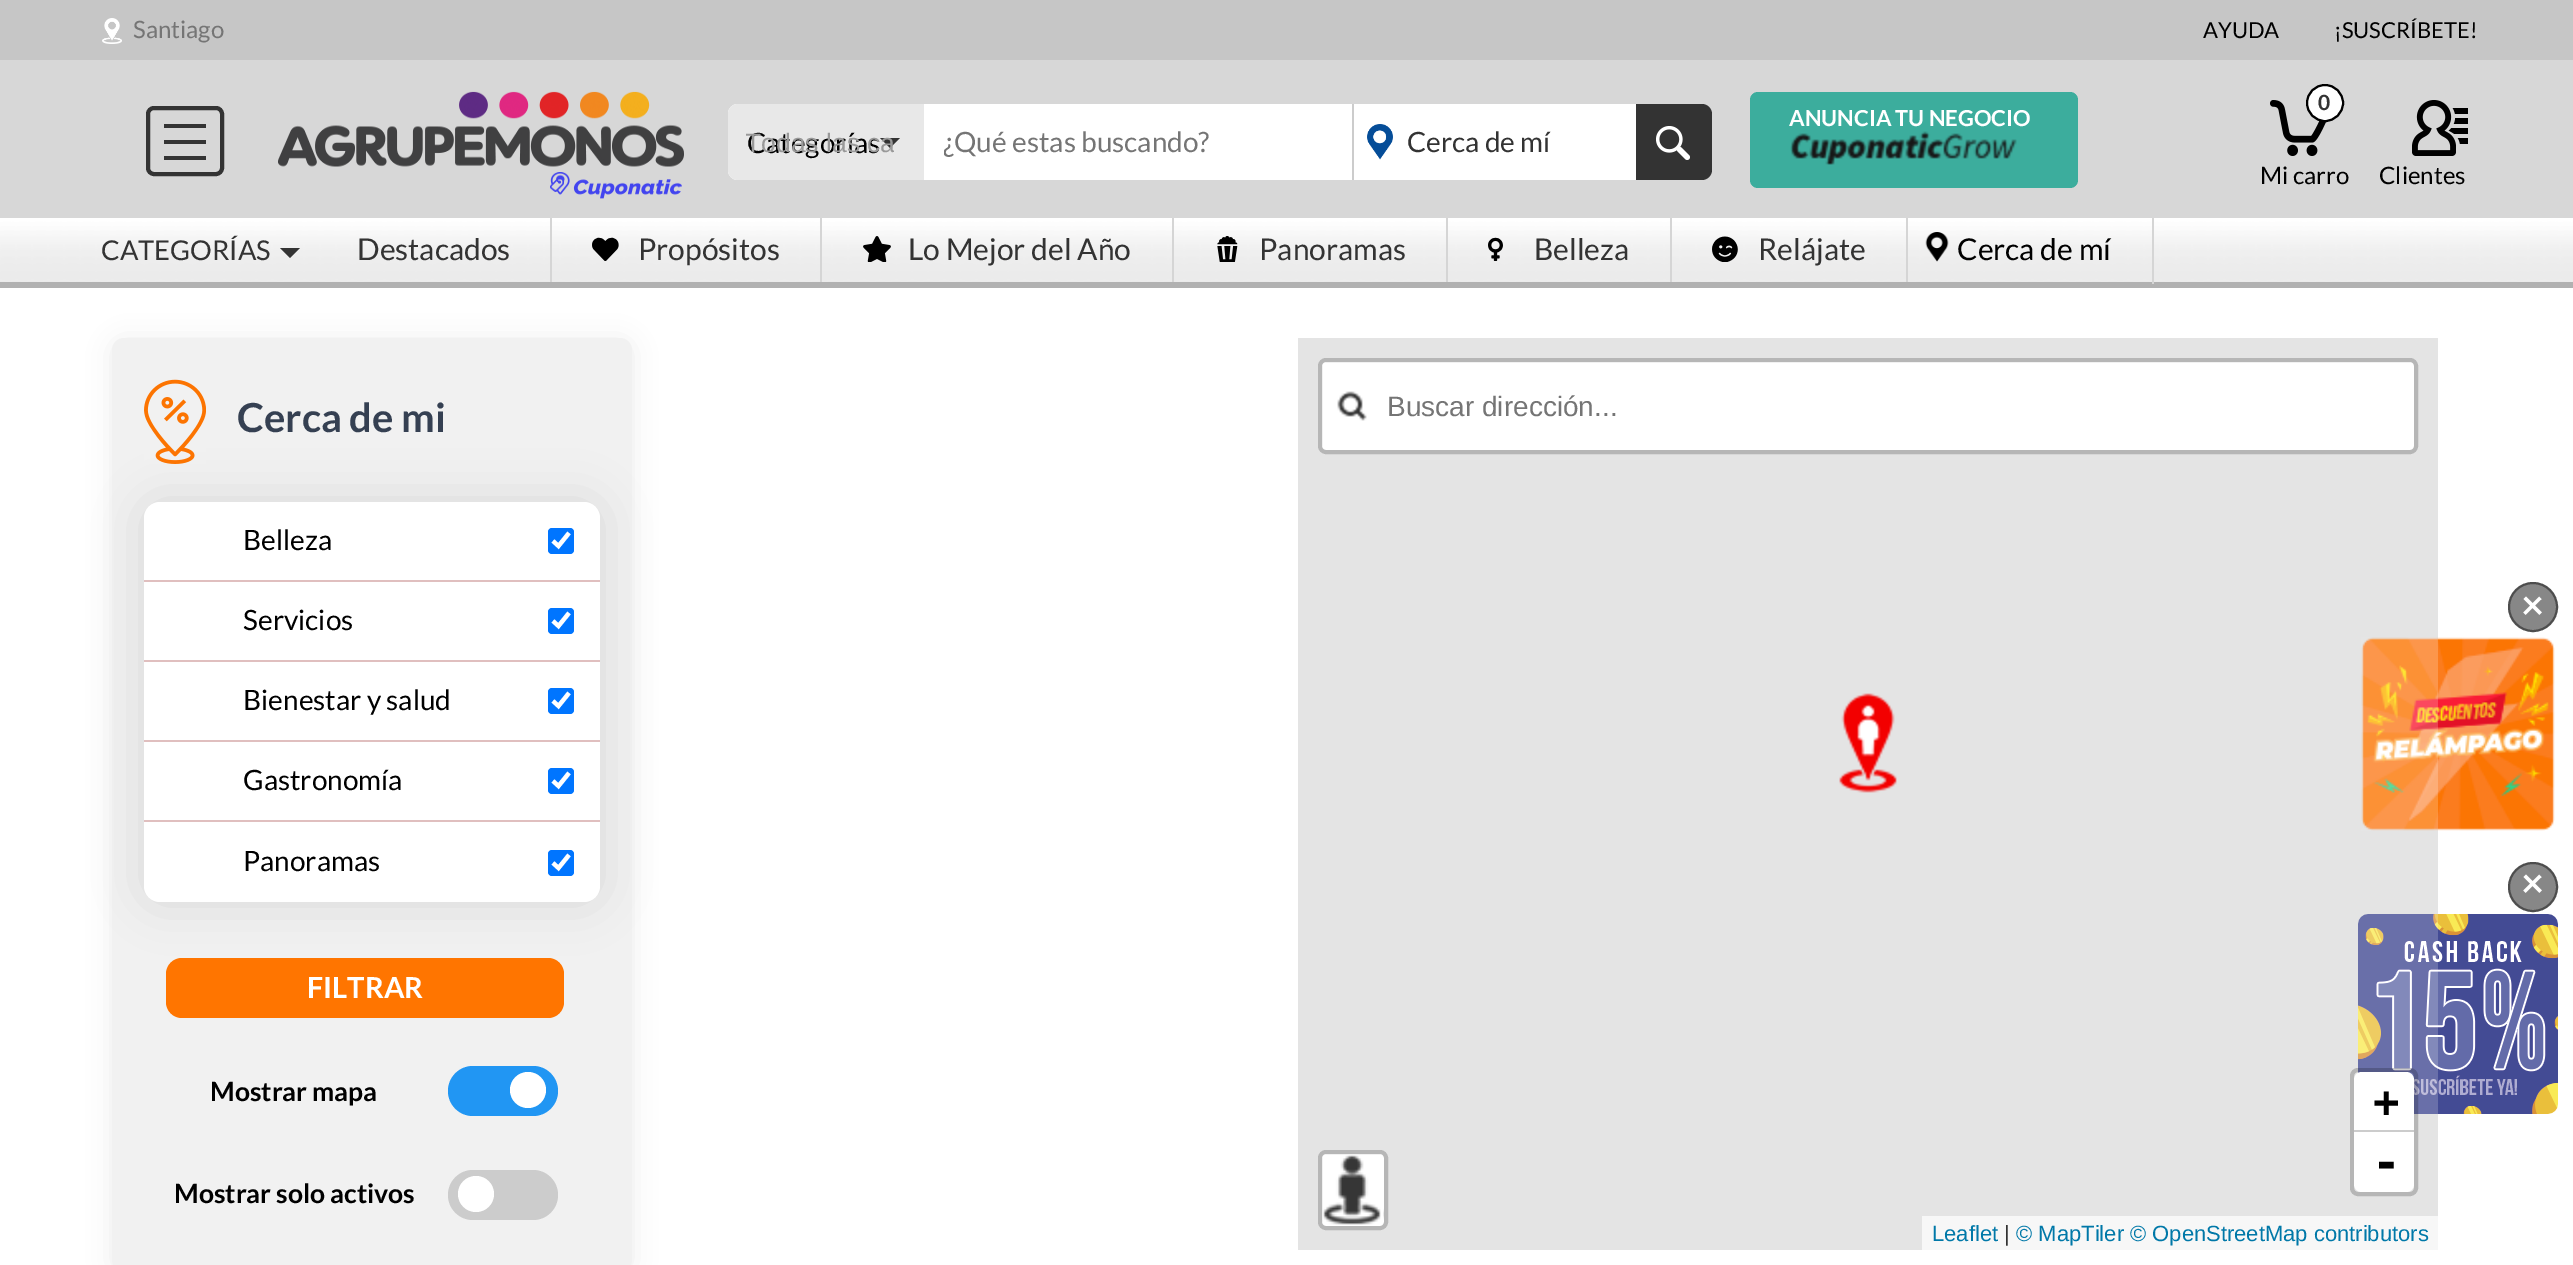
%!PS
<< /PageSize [2573 1265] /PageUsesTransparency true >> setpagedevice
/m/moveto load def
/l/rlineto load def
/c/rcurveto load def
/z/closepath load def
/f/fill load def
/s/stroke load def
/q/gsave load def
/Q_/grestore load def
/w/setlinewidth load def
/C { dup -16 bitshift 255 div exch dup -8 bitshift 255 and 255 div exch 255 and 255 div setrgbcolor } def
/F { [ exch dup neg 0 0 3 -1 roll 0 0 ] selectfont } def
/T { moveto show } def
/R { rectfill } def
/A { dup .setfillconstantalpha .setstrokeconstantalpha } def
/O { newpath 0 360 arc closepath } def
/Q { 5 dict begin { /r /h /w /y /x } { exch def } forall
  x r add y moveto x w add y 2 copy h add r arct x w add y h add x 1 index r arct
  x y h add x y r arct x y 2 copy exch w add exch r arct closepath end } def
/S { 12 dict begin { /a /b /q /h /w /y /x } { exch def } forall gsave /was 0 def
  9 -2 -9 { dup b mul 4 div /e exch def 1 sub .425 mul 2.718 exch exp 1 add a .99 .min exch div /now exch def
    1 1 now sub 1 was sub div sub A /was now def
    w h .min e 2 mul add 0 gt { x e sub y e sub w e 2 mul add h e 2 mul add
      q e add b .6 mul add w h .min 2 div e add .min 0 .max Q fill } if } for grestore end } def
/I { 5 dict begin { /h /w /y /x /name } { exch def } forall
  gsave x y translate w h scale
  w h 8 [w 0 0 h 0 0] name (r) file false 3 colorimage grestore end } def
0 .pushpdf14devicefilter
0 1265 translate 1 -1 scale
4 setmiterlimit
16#FFFFFF C
0 0 2573 1265 R
16#D7D7D7 C
0 60 2573 158 R
16#C6C6C6 C
0 0 2573 60 R
(1.rgb) 102 18 20 26 I
/Lato-Regular 24 F
16#757575 C
(Santiago) 133 38 T
/Lato-Regular 22 F
16#000000 C
(AYUDA) 2203 38 T
(¡SUSCRÍBETE!) 2334 38 T
(2.rgb) 278 91 406 108 I
16#3CAD9D C
1750 92 328 96 8 Q f
/Lato-Bold 22 F
16#FFFFFF C
(ANUNCIA TU NEGOCIO) 1789 126 T
(3.rgb) 1790 131 227 34 I
(4.rgb) 2270 100 56 56 I
2325 103 18 O q f Q_
16#000000 C
2 w
s
/Lato-Bold 21 F
16#333333 C
(0) 2318 110 T
/Lato-Regular 24 F
16#000000 C
(Mi carro) 2260 184 T
16#FFFFFF C
728 104 984 76 10 Q f
16#E8E8E8 C
738 104 m 186 0 l 0 76 l -186 0 l -5.5 0 -10 -4.5 -10 -10 c 0 -56 l 0 -5.5 4.5 -10 10 -10 c z f
/Lato-Regular 28 F
16#000000 C
(Categorías) 747 153 T
16#333333 C
880 138 m 20 0 l -10 10 l z f
q
746 126 148 34 rectclip
/LiberationSans-Regular 26.5 F
16#999999 C
(Todas las ca) 745 152 T
Q_
q
944 126 680 32 rectclip
16#757575 C
(¿Qué estas buscando?) 943 152 T
Q_
16#FFFFFF C
1352 104 m 350 0 l 5.5 0 10 4.5 10 10 c 0 56 l 0 5.5 -4.5 10 -10 10 c -350 0 l z f
(5.rgb) 1367 124 26 36 I
16#CCCCCC C
1352 104 2 76 R
16#333333 C
(Cerca de mí) 1407 152 T
1636 104 m 66 0 l 5.5 0 10 4.5 10 10 c 0 56 l 0 5.5 -4.5 10 -10 10 c -66 0 l z f
(6.rgb) 1656 126 34 34 I
(7.rgb) 2412 100 56 56 I
/Lato-Regular 24 F
16#000000 C
(Clientes) 2379 184 T
16#333333 C
4 w
148 108 74 66 6 Q s
164 124 42 4 R
164 140 42 4 R
164 156 42 4 R
(8.rgb) 0 218 2573 70 I
/Lato-Regular 27.25 F
(CATEGORÍAS) 101 260 T
280 248 m 20 0 l -10 10 l z f
16#D5D5D5 C
550 218 2 64 R
/Lato-Regular 30 F
16#333333 C
(Destacados) 357 260 T
16#D5D5D5 C
820 218 2 64 R
(9.rgb) 592 237 27 24 I
16#333333 C
(Propósitos) 638 260 T
16#D5D5D5 C
1172 218 2 64 R
(10.rgb) 863 236 28 26 I
16#333333 C
(Lo Mejor del Año) 908 260 T
16#D5D5D5 C
1446 218 2 64 R
(11.rgb) 1217 236 21 26 I
16#333333 C
(Panoramas) 1259 260 T
16#D5D5D5 C
1670 218 2 64 R
(12.rgb) 1488 237 15 24 I
16#333333 C
(Belleza) 1534 260 T
16#D5D5D5 C
1906 218 2 64 R
(13.rgb) 1712 236 26 26 I
16#333333 C
(Relájate) 1758 260 T
(14.rgb) 1925 232 24 30 I
16#D5D5D5 C
2152 218 2 66 R
16#000000 C
(Cerca de mí) 1957 260 T
112 340 520 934 12 12 .07 S
16#F1F1F1 C
112 338 520 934 12 Q f
16#000000 C
144 502 456 400 16 24 .11 S
(15.rgb) 144 379 62 85 I
/Lato-Bold 40 F
16#354052 C
(Cerca de mi) 237 432 T
16#FFFFFF C
144 502 456 400 16 Q f
16#E0BFBF C
144 580 456 2 R
/Lato-Regular 28 F
16#000000 C
(Belleza) 243 550 T
16#0075FF C
548 528 26 26 4 Q f
16#FFFFFF C
4.2 w
553 541 m 5.5 5 l 10.5 -13 l s
16#E0BFBF C
144 660 456 2 R
16#000000 C
(Servicios) 243 630 T
16#0075FF C
548 608 26 26 4 Q f
16#FFFFFF C
553 621 m 5.5 5 l 10.5 -13 l s
16#E0BFBF C
144 740 456 2 R
16#000000 C
(Bienestar y salud) 243 710 T
16#0075FF C
548 688 26 26 4 Q f
16#FFFFFF C
553 701 m 5.5 5 l 10.5 -13 l s
16#E0BFBF C
144 820 456 2 R
16#000000 C
(Gastronomía) 243 790 T
16#0075FF C
548 768 26 26 4 Q f
16#FFFFFF C
553 781 m 5.5 5 l 10.5 -13 l s
16#000000 C
(Panoramas) 243 871 T
16#0075FF C
548 850 26 26 4 Q f
16#FFFFFF C
553 863 m 5.5 5 l 10.5 -13 l s
16#FF7500 C
166 958 398 60 16 Q f
/Lato-Bold 29 F
16#FFFFFF C
(FILTRAR) 307 998 T
/Lato-Bold 26.5 F
16#000000 C
(Mostrar mapa) 210 1101 T
16#2196F3 C
448 1066 110 50 25 Q f
16#FFFFFF C
528 1090 18 O f
16#000000 C
(Mostrar solo activos) 174 1203 T
16#CCCCCC C
448 1170 110 50 25 Q f
16#FFFFFF C
476 1194 18 O f
16#DDDDDD C
1298 338 1140 912 R
(19.rgb) 2361 637 194 194 I
(20.rgb) 2358 914 200 200 I
0.2 A
16#FFFFFF C
1298 338 1140 912 R
1 A
(16.rgb) 1839 693 58 100 I
1322 362 1092 88 4 Q f
0.2 A
16#000000 C
4 w
1320 360 1096 92 6 Q s
1 A
(17.rgb) 1337 391 30 30 I
/LiberationSans-Regular 28 F
16#757575 C
(Buscar dirección...) 1387 416 T
16#FFFFFF C
1322 1154 62 72 4 Q f
(18.rgb) 1323 1155 61 70 I
0.2 A
16#000000 C
1320 1152 66 76 6 Q s
2352 1070 64 124 6 Q s
1 A
16#FFFFFF C
2362 1072 m 44 0 l 4.5 0 8 3.5 8 8 c 0 52 l -60 0 l 0 -52 l 0 -4.5 3.5 -8 8 -8 c z f
16#CCCCCC C
2354 1130 60 2 R
/DejaVuSansMono-Bold 44 F
16#000000 C
(+) 2373 1117 T
16#FFFFFF C
2354 1132 m 60 0 l 0 52 l 0 4.5 -3.5 8 -8 8 c -44 0 l -4.5 0 -8 -3.5 -8 -8 c z f
/DejaVuSansMono-Bold 48 F
16#000000 C
(-) 2372 1179 T
16#F7F7F7 C
1922 1216 516 34 R
/LiberationSans-Regular 22 F
16#0078A8 C
(Leaflet) 1932 1241 T
16#333333 C
(|) 2004 1241 T
16#0078A8 C
(© MapTiler © OpenStreetMap contributors) 2016 1241 T
16#878787 C
2533 607 24 O q f Q_
16#4D4D4D C
2 w
s
/Lato-Bold 40 F
16#FFFFFF C
(×) 2521 619 T
16#878787 C
2533 887 24 O q f Q_
16#4D4D4D C
s
16#FFFFFF C
(×) 2521 897 T
.poppdf14devicefilter showpage
